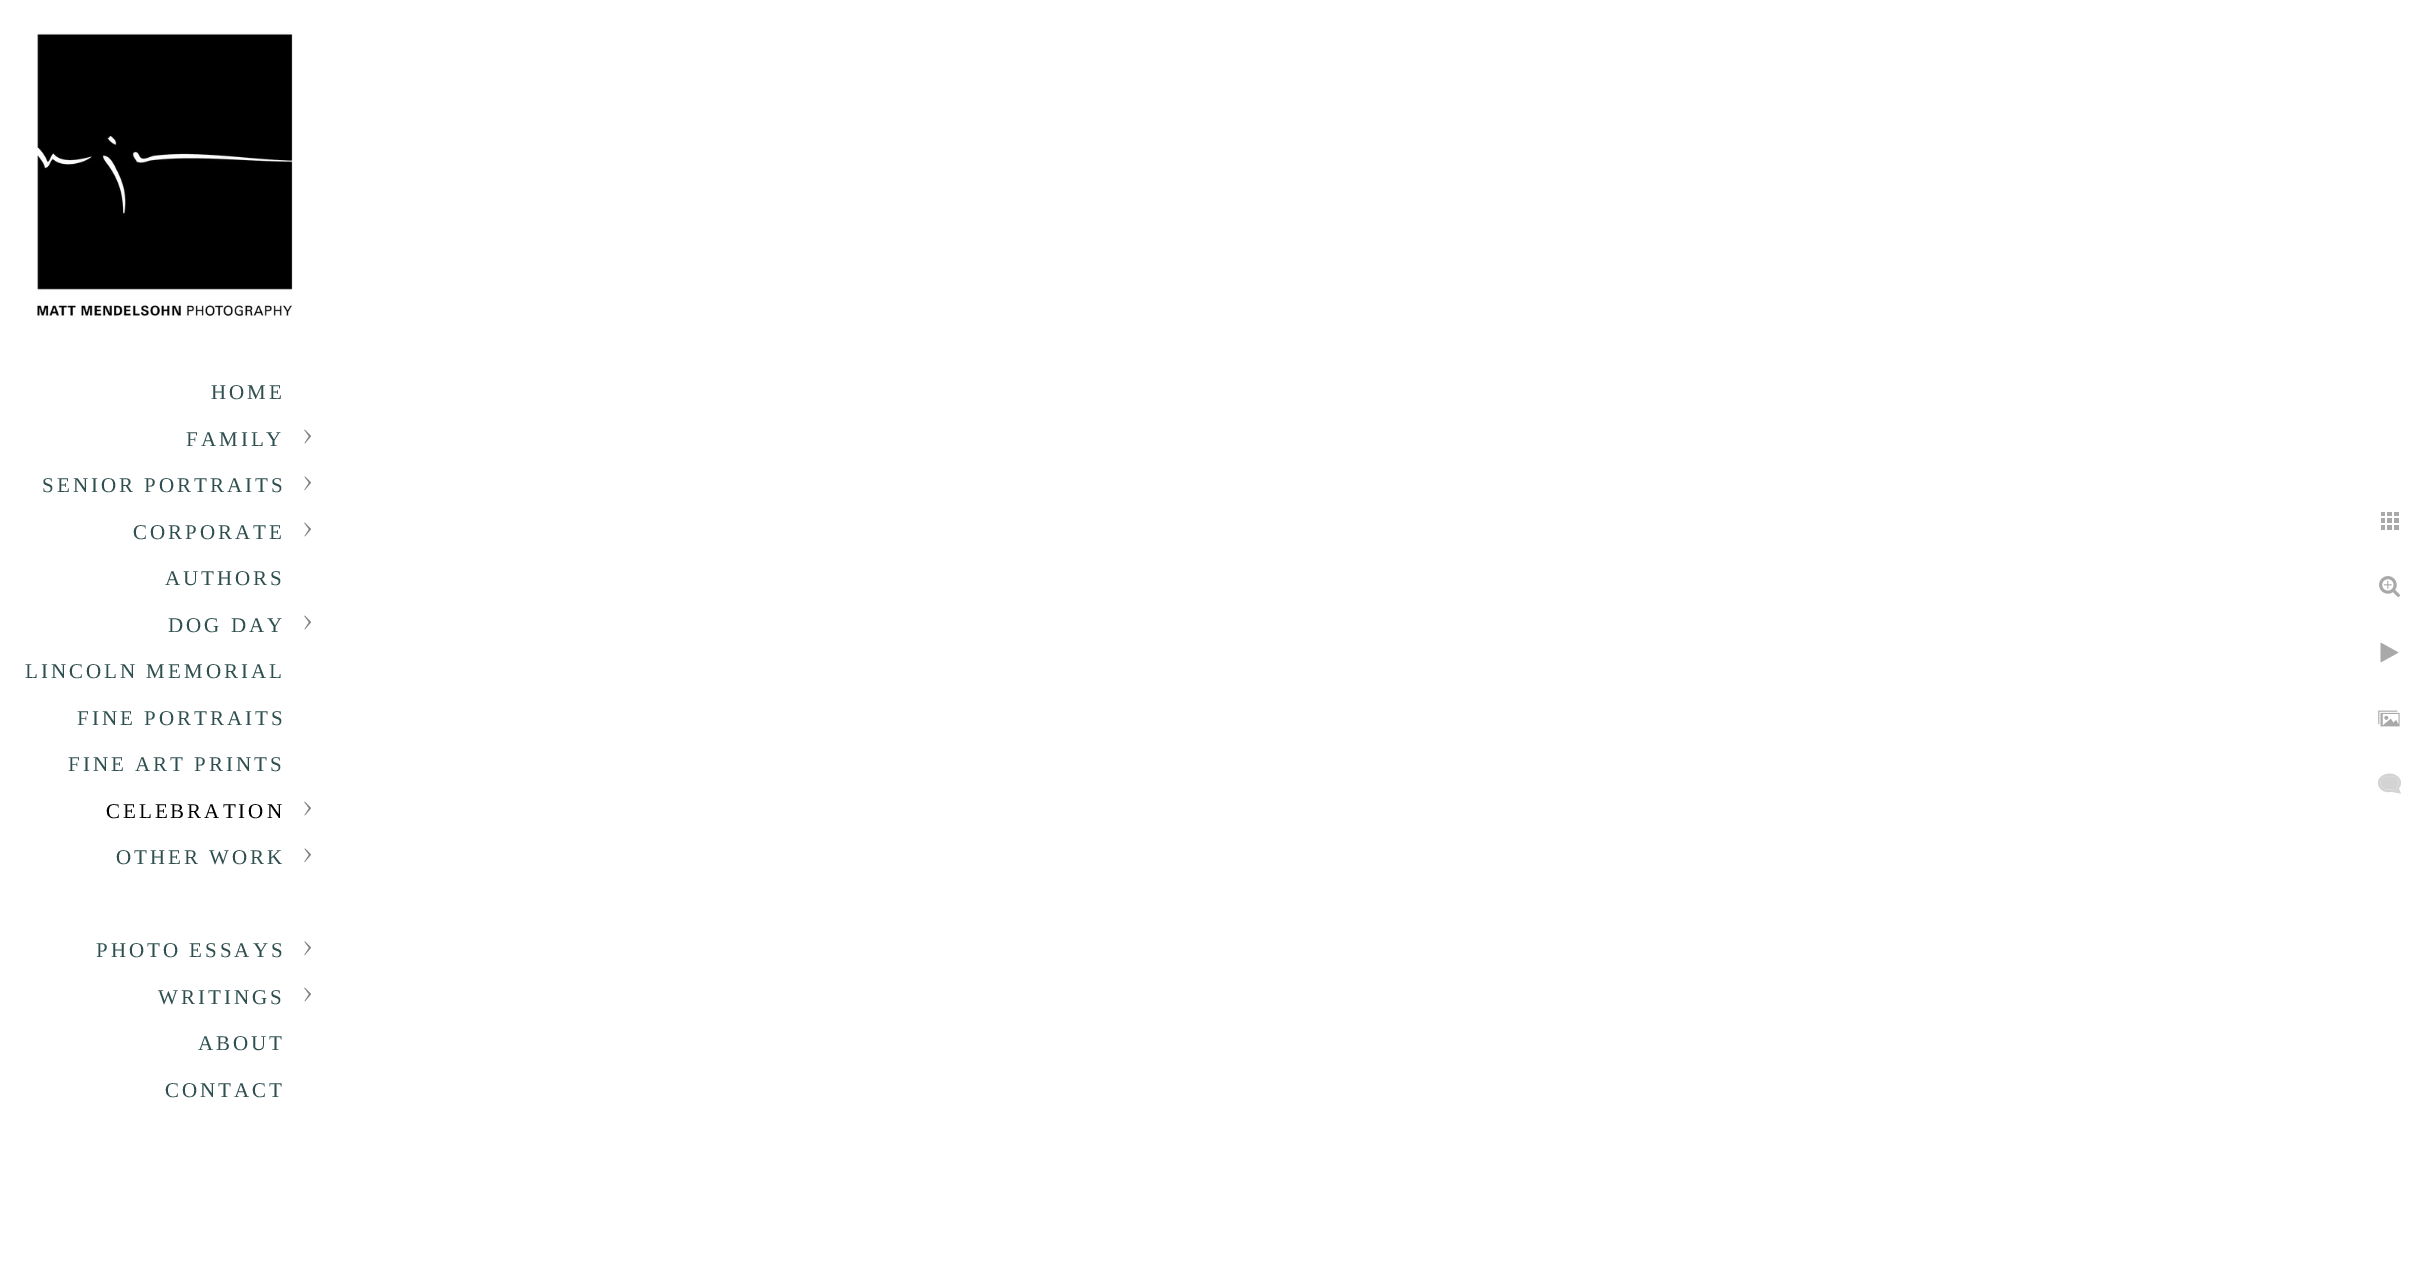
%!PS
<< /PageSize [2429 1275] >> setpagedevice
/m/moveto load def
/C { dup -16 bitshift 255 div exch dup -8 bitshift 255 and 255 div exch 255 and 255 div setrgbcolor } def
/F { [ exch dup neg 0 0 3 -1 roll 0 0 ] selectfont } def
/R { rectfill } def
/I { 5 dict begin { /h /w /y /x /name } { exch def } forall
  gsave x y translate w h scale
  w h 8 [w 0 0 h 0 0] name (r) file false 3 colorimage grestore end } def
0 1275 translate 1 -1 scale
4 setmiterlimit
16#FFFFFF C
0 0 2429 1275 R
(1.rgb) 36 32 257 286 I
/LiberationSerif-Regular 21 F
16#2F4F4F C
211 399 m 3 0 (HOME) ashow
186 446 m 3 0 (FAMILY) ashow
(2.rgb) 304 429 7 15 I
42 492 m 3 0 (SENIOR PORTRAITS) ashow
(3.rgb) 304 476 7 15 I
133 539 m 3 0 (CORPORATE) ashow
(2.rgb) 304 522 7 15 I
165 585 m 3 0 (AUTHORS) ashow
168 632 m 3 0 (DOG DAY) ashow
(2.rgb) 304 615 7 15 I
25 678 m 3 0 (LINCOLN MEMORIAL) ashow
77 725 m 3 0 (FINE PORTRAITS) ashow
68 771 m 3 0 (FINE ART PRINTS) ashow
16#000000 C
106 818 m 3 0 (CELEBRATION) ashow
(2.rgb) 304 801 7 15 I
16#2F4F4F C
116 864 m 3 0 (OTHER WORK) ashow
(3.rgb) 304 848 7 15 I
96 957 m 3 0 (PHOTO ESSAYS) ashow
(3.rgb) 304 941 7 15 I
158 1004 m 3 0 (WRITINGS) ashow
(2.rgb) 304 987 7 15 I
198 1050 m 3 0 (ABOUT) ashow
165 1097 m 3 0 (CONTACT) ashow
(4.rgb) 2381 512 18 18 I
(5.rgb) 2379 576 21 21 I
(6.rgb) 2380 642 19 21 I
(7.rgb) 2378 710 22 17 I
(8.rgb) 2378 773 23 21 I
showpage
